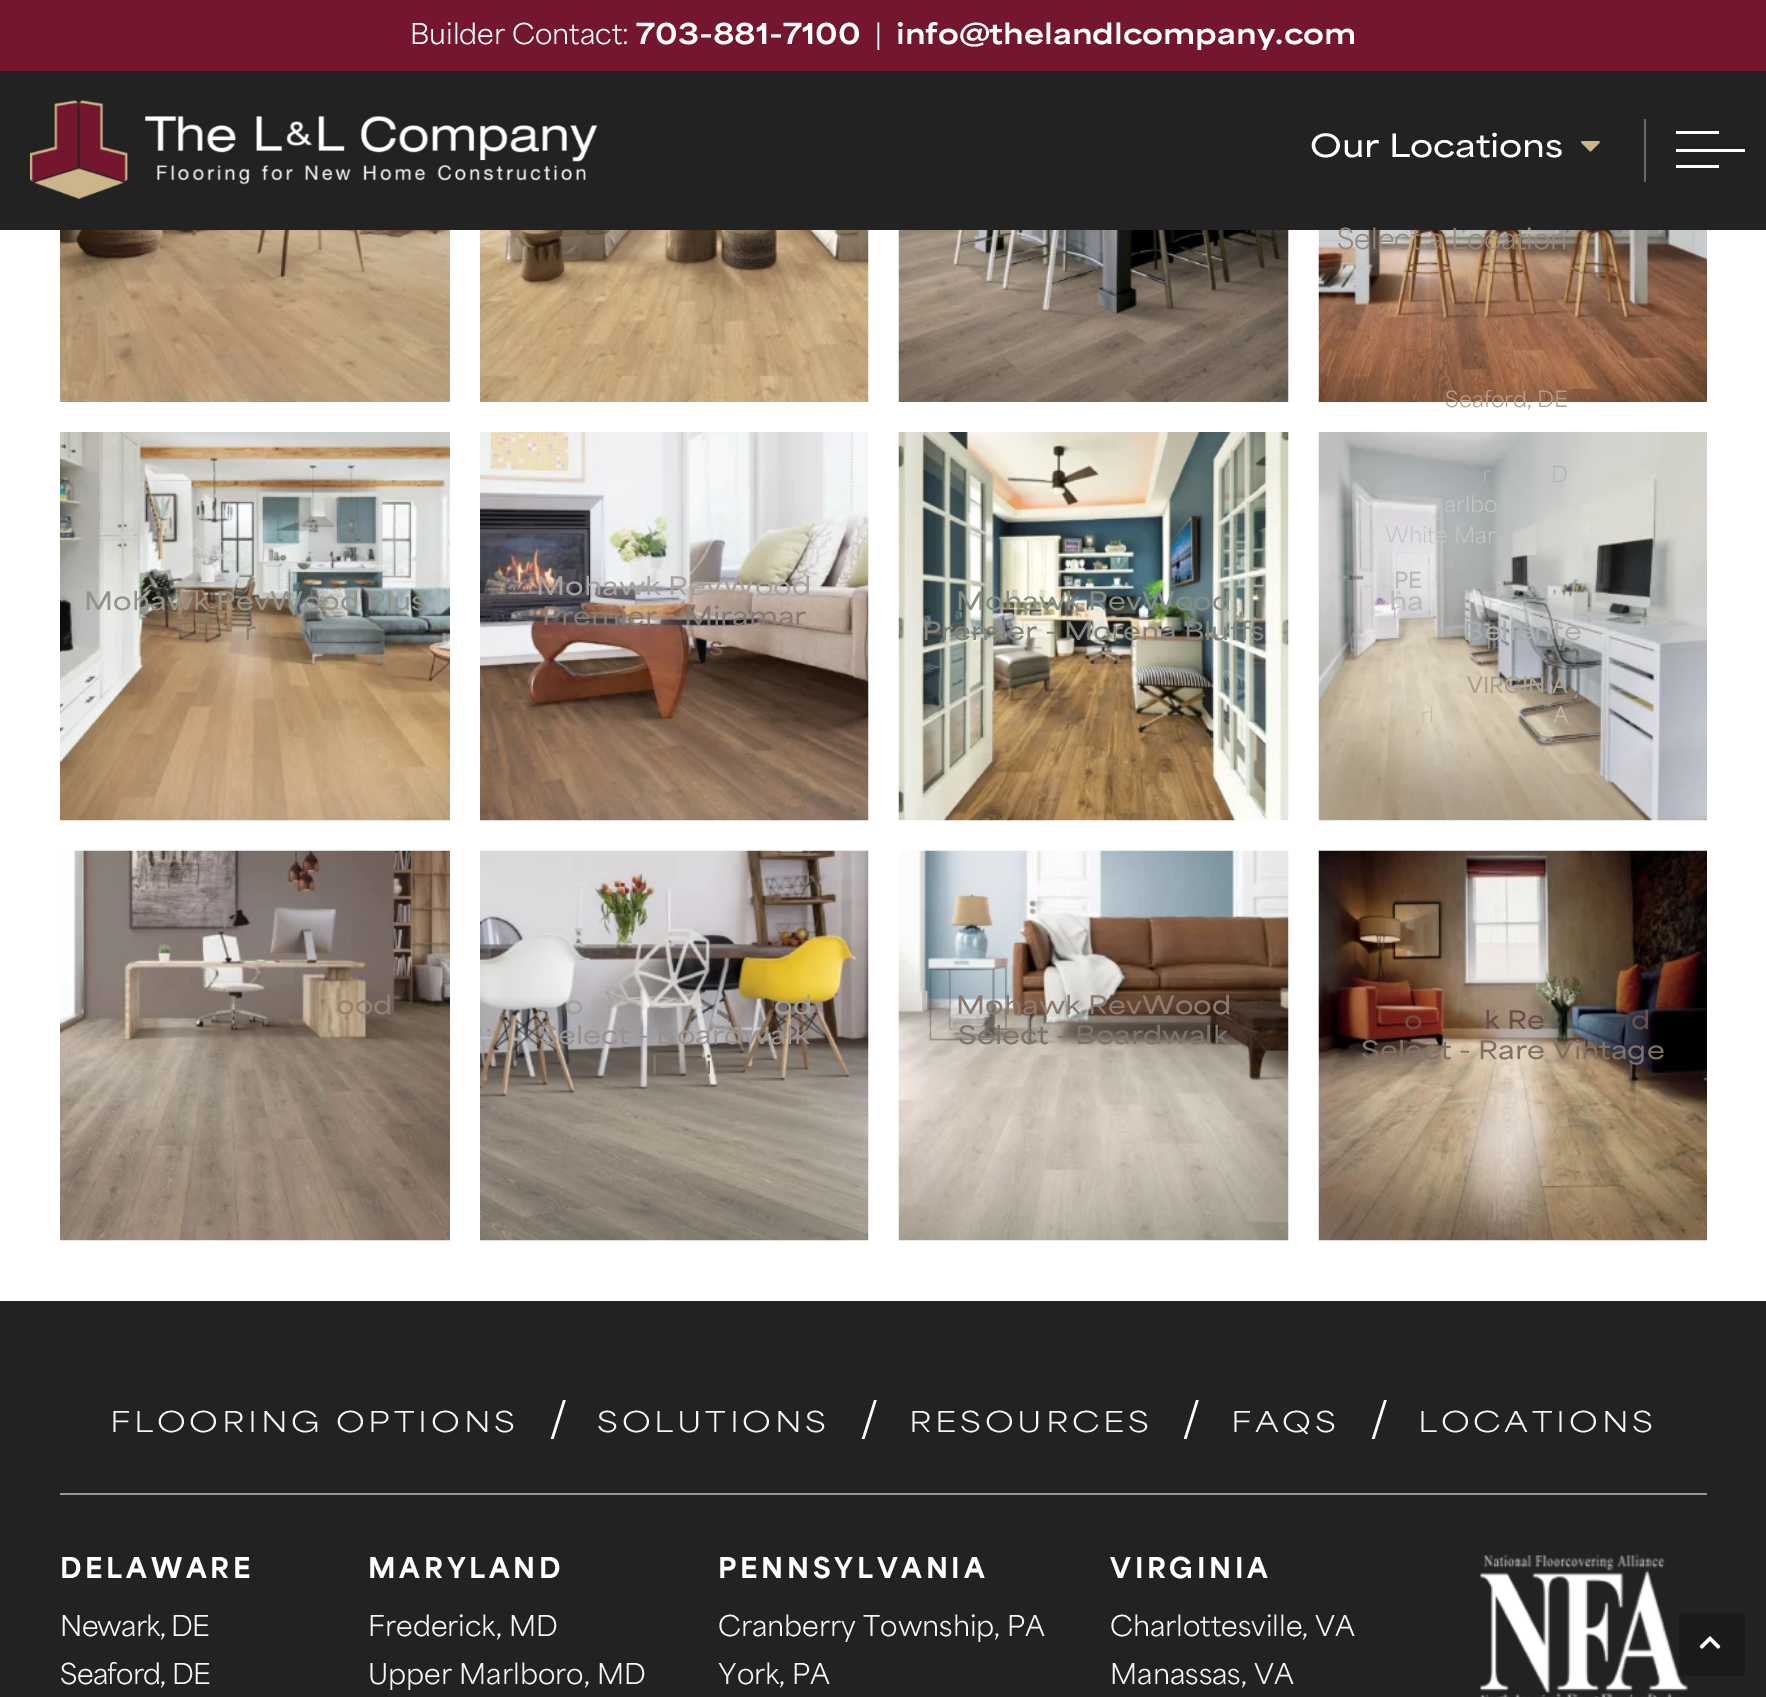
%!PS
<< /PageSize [1766 1697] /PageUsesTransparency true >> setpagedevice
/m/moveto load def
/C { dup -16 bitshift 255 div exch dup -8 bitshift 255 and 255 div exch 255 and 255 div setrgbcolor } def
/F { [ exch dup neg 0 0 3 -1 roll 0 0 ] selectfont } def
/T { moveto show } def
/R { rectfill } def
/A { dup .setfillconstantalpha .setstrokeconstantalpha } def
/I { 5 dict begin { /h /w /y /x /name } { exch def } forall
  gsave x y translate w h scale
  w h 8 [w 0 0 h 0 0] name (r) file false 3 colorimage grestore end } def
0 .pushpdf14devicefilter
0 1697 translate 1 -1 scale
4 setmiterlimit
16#FFFFFF C
0 0 1766 1697 R
16#73162E C
0 0 1766 71 R
/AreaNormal-Regular 27 F
16#FFFFFF C
(Builder Contact:) 410 44 T
/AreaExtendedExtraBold-ExtraBold 27 F
(703-881-7100) 636 44 T
/AreaNormal-Regular 27 F
(|) 875 44 T
/AreaExtendedExtraBold-ExtraBold 27 F
(info@thelandlcompany.com) 896 44 T
16#222222 C
0 71 1766 159 R
(1.rgb) 30 100 568 100 I
/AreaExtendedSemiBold-SemiBold 30 F
16#FFFFFF C
(Our Locations) 1310 157 T
(2.rgb) 1581 141 19 11 I
(6.rgb) 1318 230 389 172 I
/AreaNormal-Regular 27 F
16#95877A C
(Select a Location) 1337 249 T
/AreaNormal-Regular 21 F
16#BA9B89 C
(Seaford, DE) 1445 407 T
(10.rgb) 1318 432 389 389 I
16#B0B4B5 C
(r) 1482 482 T
(D) 1551 482 T
16#C3C5C6 C
(arlbo) 1444 512 T
(White Mar) 1385 543 T
/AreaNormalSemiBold-SemiBold 21 F
16#B8B9B8 C
(PE) 1394 588 T
/AreaExtendedSemiBold-SemiBold 24 F
(ha) 1389 610 T
/AreaNormal-Regular 21 F
16#BEBFBE C
(r) 1392 618 T
/AreaNormalSemiBold-SemiBold 21 F
16#A79F92 C
(VIRGINIA) 1467 693 T
/AreaNormal-Regular 21 F
16#C8BCA7 C
(rl) 1420 723 T
(A) 1553 723 T
16#676767 C
1644 119 2 63 R
16#FFFFFF C
1676 149 69 3 R
1676 131 43 3 R
1676 165 43 3 R
(3.rgb) 60 230 390 172 I
(4.rgb) 480 230 389 172 I
(5.rgb) 898 230 391 172 I
(7.rgb) 60 432 390 389 I
/AreaExtendedSemiBold-SemiBold 24 F
16#95928A C
(Mohawk RevWood Plus) 84 610 T
16#92826E C
(r) 244 640 T
(8.rgb) 480 432 389 389 I
16#A8A1A0 C
(Mohawk RevWood) 536 595 T
16#8A7A71 C
(Premier - Miramar) 542 625 T
16#7B5547 C
(s) 709 655 T
(9.rgb) 898 432 391 389 I
16#848E85 C
(Mohawk RevWood) 956 610 T
16#82837B C
(Premier - Morena Bluffs) 922 640 T
16#A9ABAD C
(Bellente) 1463 640 T
(11.rgb) 60 850 390 391 I
16#92826E C
(ood) 336 1014 T
(12.rgb) 480 850 389 391 I
16#A49E99 C
(o) 565 1014 T
(od) 774 1014 T
16#999190 C
(Select - Boardwalk) 539 1044 T
16#7D746C C
(l) 651 1074 T
(i) 705 1074 T
(13.rgb) 898 850 391 391 I
16#8A7A71 C
(Mohawk RevWood) 956 1014 T
16#7D746C C
(Select - Boardwalk) 958 1044 T
(14.rgb) 1318 850 389 391 I
16#694F48 C
(o) 1404 1029 T
(k Re) 1484 1029 T
(d) 1631 1029 T
16#7F7165 C
(Select - Rare Vintage) 1361 1059 T
16#222222 C
0 1301 1766 396 R
/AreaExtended-Regular 27 F
16#F5F5F5 C
110 1432 m 3.75 0 (FLOORING OPTIONS) ashow
/AreaNormal-Regular 45 F
16#FFFFFF C
(/) 549 1436 T
/AreaExtended-Regular 27 F
16#F5F5F5 C
597 1432 m 3.75 0 (SOLUTIONS) ashow
/AreaNormal-Regular 45 F
16#FFFFFF C
(/) 860 1436 T
/AreaExtended-Regular 27 F
16#F5F5F5 C
909 1432 m 3.75 0 (RESOURCES) ashow
/AreaNormal-Regular 45 F
16#FFFFFF C
(/) 1182 1436 T
/AreaExtended-Regular 27 F
16#F5F5F5 C
1231 1432 m 3.75 0 (FAQS) ashow
/AreaNormal-Regular 45 F
16#FFFFFF C
(/) 1370 1436 T
/AreaExtended-Regular 27 F
16#F5F5F5 C
1418 1432 m 3.75 0 (LOCATIONS) ashow
16#979797 C
60 1493 1647 2 R
/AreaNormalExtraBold-ExtraBold 27 F
16#FFFFFF C
60 1578 m 3.75 0 (DELAWARE) ashow
/AreaNormal-Regular 27 F
16#F5F5F5 C
60 1636 m -.75 0 (Newark, DE) ashow
60 1684 m -.75 0 (Seaford, DE) ashow
/AreaNormalExtraBold-ExtraBold 27 F
16#FFFFFF C
368 1578 m 3.75 0 (MARYLAND) ashow
/AreaNormal-Regular 27 F
16#F5F5F5 C
(Frederick, MD) 368 1636 T
(Upper Marlboro, MD) 368 1684 T
/AreaNormalExtraBold-ExtraBold 27 F
16#FFFFFF C
718 1578 m 3.75 0 (PENNSYLVANIA) ashow
/AreaNormal-Regular 27 F
16#F5F5F5 C
(Cranberry Township, PA) 718 1636 T
(York, PA) 718 1684 T
/AreaNormalExtraBold-ExtraBold 27 F
16#FFFFFF C
1110 1578 m 3.75 0 (VIRGINIA) ashow
/AreaNormal-Regular 27 F
16#F5F5F5 C
(Charlottesville, VA) 1110 1636 T
(Manassas, VA) 1110 1684 T
(15.rgb) 1479 1554 209 143 I
0.2 A
16#000000 C
1679 1613 66 63 R
1 A
(16.rgb) 1699 1636 22 13 I
.poppdf14devicefilter showpage
